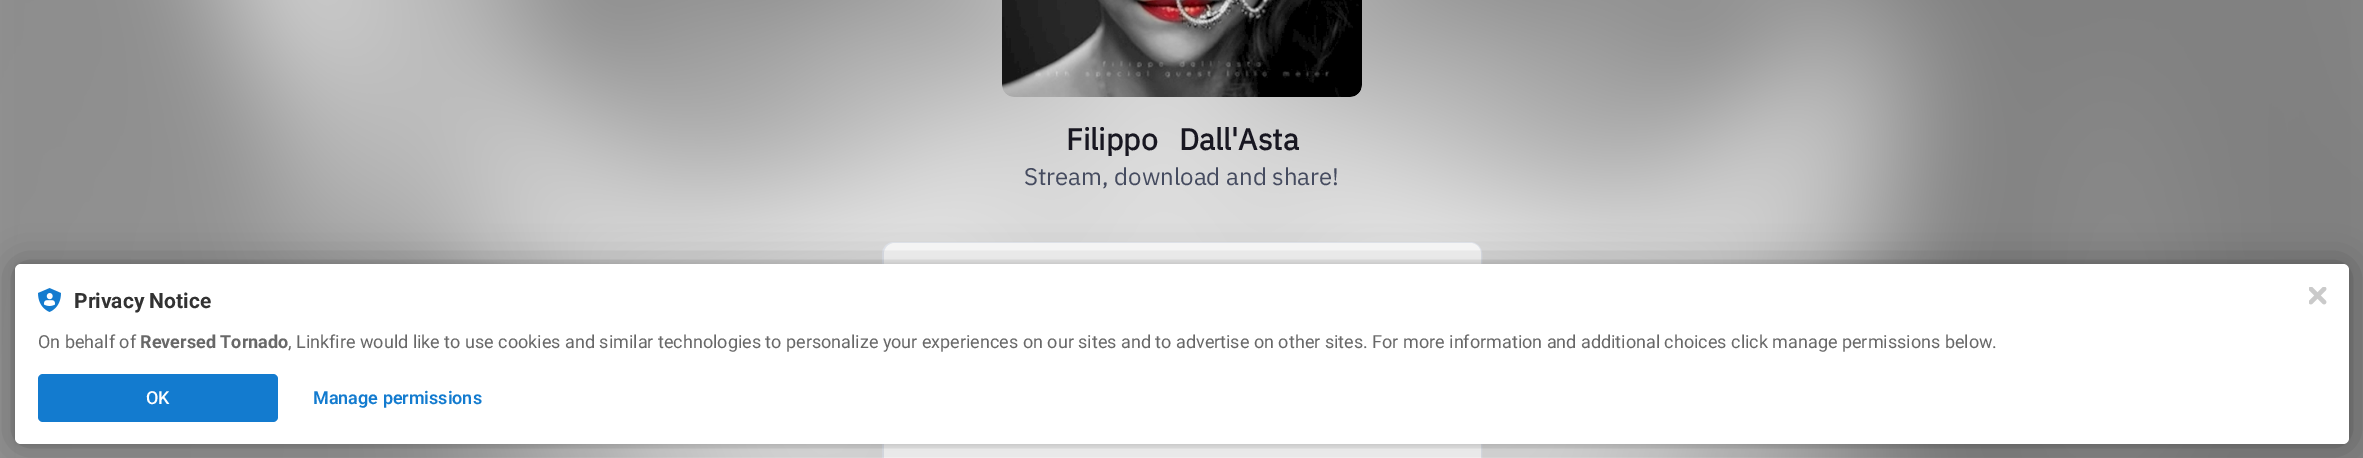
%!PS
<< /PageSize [2363 458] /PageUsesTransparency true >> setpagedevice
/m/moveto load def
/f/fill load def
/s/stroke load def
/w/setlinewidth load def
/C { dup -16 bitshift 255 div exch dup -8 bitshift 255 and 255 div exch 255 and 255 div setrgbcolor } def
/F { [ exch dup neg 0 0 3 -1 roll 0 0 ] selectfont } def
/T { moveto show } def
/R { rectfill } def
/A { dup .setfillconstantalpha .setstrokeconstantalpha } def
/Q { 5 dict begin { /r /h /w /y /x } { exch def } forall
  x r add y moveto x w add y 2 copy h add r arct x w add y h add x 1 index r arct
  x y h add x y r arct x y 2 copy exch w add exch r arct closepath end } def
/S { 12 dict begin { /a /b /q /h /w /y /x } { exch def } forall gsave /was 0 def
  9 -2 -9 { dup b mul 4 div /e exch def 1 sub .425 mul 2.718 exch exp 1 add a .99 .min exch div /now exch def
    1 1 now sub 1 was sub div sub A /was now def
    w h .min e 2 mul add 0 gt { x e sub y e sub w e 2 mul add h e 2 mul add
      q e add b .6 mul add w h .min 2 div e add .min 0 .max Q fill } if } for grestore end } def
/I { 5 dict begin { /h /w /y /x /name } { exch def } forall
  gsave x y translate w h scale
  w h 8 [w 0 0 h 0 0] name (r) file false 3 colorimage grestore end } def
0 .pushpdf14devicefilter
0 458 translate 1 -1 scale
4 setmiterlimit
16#FFFFFF C
0 0 2363 458 R
(1.rgb) 0 0 2363 458 I
(2.rgb) 1002 0 360 97 I
/IBMPlexSans-Bold 30 F
16#181721 C
1066 150 m 14 0 32 (Filippo Dall'Asta) widthshow
/IBMPlexSans-Regular 24 F
16#454B5F C
(Stream, download and share!) 1024 185 T
16#E6EAF2 C
2 w
883 243 598 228 11 Q s
16#FFFFFF C
884 243 597 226 11 Q f
16#000000 C
15 264 2334 180 6 3 .12 S
15 264 2334 180 6 18 .3 S
16#FFFFFF C
15 264 2334 180 6 Q f
(3.rgb) 38 288 23 24 I
/Roboto-Bold 21 F
16#323232 C
(Privacy Notice) 74 308 T
/Roboto-Regular 18 F
16#686868 C
(On behalf of) 38 348 T
/Roboto-Bold 18 F
(Reversed Tornado) 140 348 T
/Roboto-Regular 18 F
(, Linkfire would like to use cookies and similar technologies to personalize your experiences on our sites and to advertise on other sites. For more information and additional choices click manage permissions below.) 288 348 T
16#137BCF C
38 374 240 48 5 Q f
/Roboto-Medium 18 F
16#FFFFFF C
(OK) 146 404 T
/Roboto-SemiBold 18 F
16#137BCF C
(Manage permissions) 313 404 T
(4.rgb) 2309 287 18 18 I
.poppdf14devicefilter showpage
